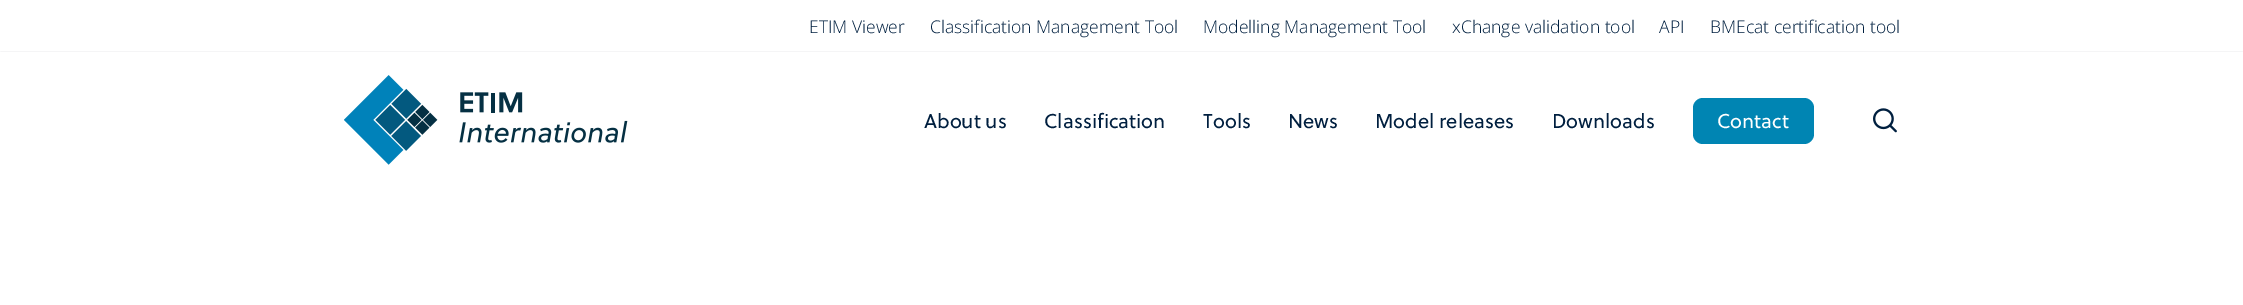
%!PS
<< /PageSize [2243 305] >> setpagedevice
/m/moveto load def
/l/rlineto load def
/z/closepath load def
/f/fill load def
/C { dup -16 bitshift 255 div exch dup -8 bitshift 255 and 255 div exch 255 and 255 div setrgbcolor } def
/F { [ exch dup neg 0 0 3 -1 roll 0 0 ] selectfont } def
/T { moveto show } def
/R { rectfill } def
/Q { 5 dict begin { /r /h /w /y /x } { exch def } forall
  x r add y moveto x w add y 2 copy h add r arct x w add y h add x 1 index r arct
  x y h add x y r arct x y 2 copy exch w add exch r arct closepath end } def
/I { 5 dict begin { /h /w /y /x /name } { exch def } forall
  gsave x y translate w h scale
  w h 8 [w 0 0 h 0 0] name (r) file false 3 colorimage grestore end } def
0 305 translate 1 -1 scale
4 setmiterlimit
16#FFFFFF C
0 0 2243 305 R
16#F5F5F6 C
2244 52 m -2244 0 l 1 -1 l 2241 0 l z f
/OpenSans-Light 17.5 F
16#001F3F C
(ETIM Viewer) 809 33 T
(Classification Management Tool) 930 33 T
(Modelling Management Tool) 1203 33 T
(xChange validation tool) 1452 33 T
(API) 1659 33 T
(BMEcat certification tool) 1710 33 T
(1.rgb) 344 75 284 90 I
/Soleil-Regular 20 F
(About us) 924 128 T
(Classification) 1044 128 T
(Tools) 1203 128 T
(News) 1288 128 T
(Model releases) 1375 128 T
(Downloads) 1552 128 T
16#0085B3 C
1693 98 121 46 10 Q f
16#FFFFFF C
(Contact) 1717 128 T
(2.rgb) 1873 108 24 25 I
showpage
